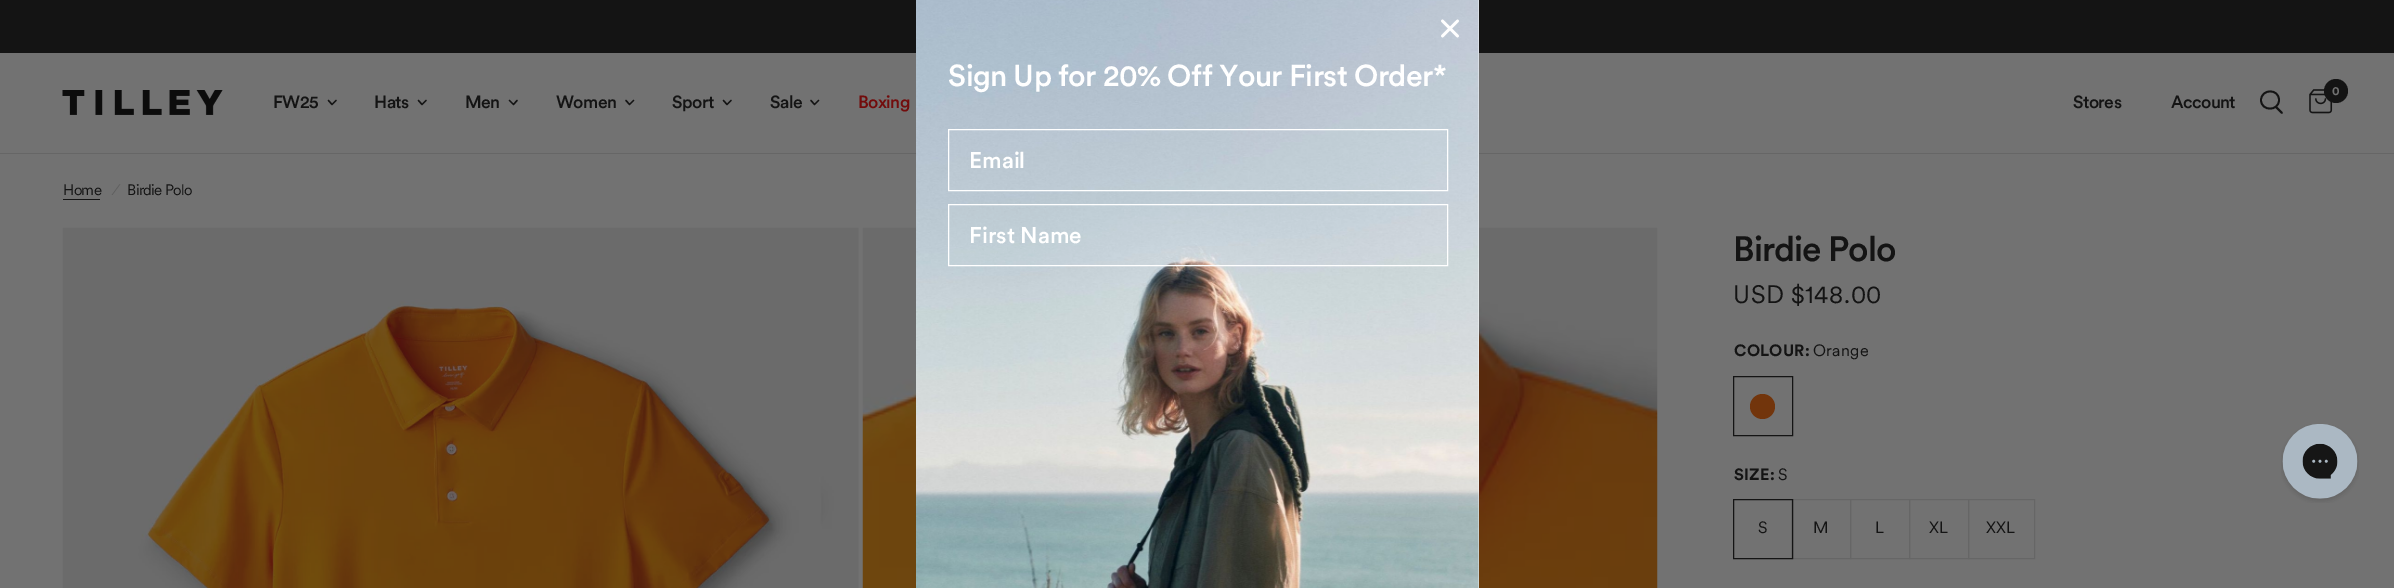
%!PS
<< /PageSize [2394 588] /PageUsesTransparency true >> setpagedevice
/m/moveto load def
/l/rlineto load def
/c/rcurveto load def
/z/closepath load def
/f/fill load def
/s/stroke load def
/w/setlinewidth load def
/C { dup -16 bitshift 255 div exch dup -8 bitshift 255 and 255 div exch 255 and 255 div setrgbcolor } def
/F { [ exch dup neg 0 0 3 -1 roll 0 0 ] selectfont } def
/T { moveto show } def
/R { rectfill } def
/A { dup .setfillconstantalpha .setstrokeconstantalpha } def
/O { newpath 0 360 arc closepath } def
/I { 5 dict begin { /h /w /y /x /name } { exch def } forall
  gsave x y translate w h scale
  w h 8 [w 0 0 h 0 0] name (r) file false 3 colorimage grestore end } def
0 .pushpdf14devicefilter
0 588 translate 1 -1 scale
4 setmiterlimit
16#727272 C
0 0 2394 588 R
16#141414 C
0 0 2394 53 R
16#666666 C
0 153 2394 1 R
(5.rgb) 862 227 796 361 I
16#FFFFFF C
1478 0 1 588 R
(1.rgb) 916 0 563 588 I
2.8 w
1 setlinecap
1 setlinejoin
1442.5 21 m 15 15 l 1442.5 36 m 15 -15 l z s
/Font-Medium 30 F
948 86 m -.55 0 (Sign Up for 20% Off Your First Order*) ashow
0.05 A
948.5 129.5 m 499 0 l 0 61 l -499 0 l z f
1 A
1 w
0 setlinecap
0 setlinejoin
948.5 129.5 m 499 0 l 0 61 l -499 0 l z s
/Font-Medium 22.5 F
(Email) 969 168 T
0.05 A
948.5 204.5 m 499 0 l 0 61 l -499 0 l z f
1 A
948.5 204.5 m 499 0 l 0 61 l -499 0 l z s
(First Name) 969 243 T
(2.rgb) 62 90 161 25 I
/Font-Medium 17.5 F
16#141414 C
273 108 m -.6 0 (FW25) ashow
1.4 w
1 setlinecap
1 setlinejoin
336 100.5 m -4 4 l -3.5 -4 l s
374 108 m -.6 0 (Hats) ashow
426 100.5 m -4 4 l -3.5 -4 l s
465 108 m -.6 0 (Men) ashow
517 100.5 m -3.5 4 l -4 -4 l s
556 108 m -.6 0 (Women) ashow
633.5 100.5 m -4 4 l -3.5 -4 l s
672 108 m -.6 0 (Sport) ashow
731 100.5 m -4 4 l -3.5 -4 l s
770 108 m -.6 0 (Sale) ashow
818.5 100.5 m -4 4 l -3.5 -4 l s
16#720C0C C
858 108 m -.6 0 (Boxing) ashow
16#141414 C
2073 108 m -.6 0 (Stores) ashow
2171 108 m -.6 0 (Account) ashow
1.8 w
2276 107 m 6 6 l 2279 100 m 0 11.5 -18 11.5 -18 0 c .5 -11.5 18 -11.5 18 0 c z s
(3.rgb) 2309 89 24 25 I
2336 91 12 O f
/Font-Bold 12 F
16#727272 C
2332 95 m -.6 0 (0) ashow
/Font-Regular 15 F
16#141414 C
63 195 m -.6 0 (Home) ashow
63 199 37 1 R
/Font-Italic 15 F
16#5F5F5F C
111 195 m -.6 0 (/) ashow
/Font-Regular 15 F
16#141414 C
127 195 m -.6 0 (Birdie Polo) ashow
(4.rgb) 62 227 797 361 I
/Font-Medium 35 F
1733 261 m -1 0 (Birdie Polo) ashow
/Font-Regular 25 F
1733 303 m .5 0 (USD $148.00) ashow
/Font-Bold 16.25 F
1734 356 m .25 0 (COLOUR:) ashow
/Font-Regular 16.25 F
1813 356 m .25 0 (Orange) ashow
1 w
0 setlinecap
0 setlinejoin
1733.5 376.5 59 59 rectstroke
16#72350C C
1762.5 406.5 12.5 O f
/Font-Bold 16.25 F
16#141414 C
1734 480 m .25 0 (SIZE:) ashow
/Font-Regular 16.25 F
1778 480 m .25 0 (S) ashow
16#666666 C
1791.5 499.5 59 59 rectstroke
16#141414 C
1733.5 499.5 59 59 rectstroke
1758 533 m .25 0 (S) ashow
1813 533 m .25 0 (M) ashow
16#666666 C
1850.5 499.5 59 59 rectstroke
16#141414 C
1875 533 m .25 0 (L) ashow
16#666666 C
1909.5 499.5 59 59 rectstroke
16#141414 C
1929 533 m .25 0 (XL) ashow
16#666666 C
1968.5 499.5 66 59 rectstroke
16#141414 C
1986 533 m .25 0 (XXL) ashow
(6.rgb) 2281 424 78 79 I
.poppdf14devicefilter showpage
